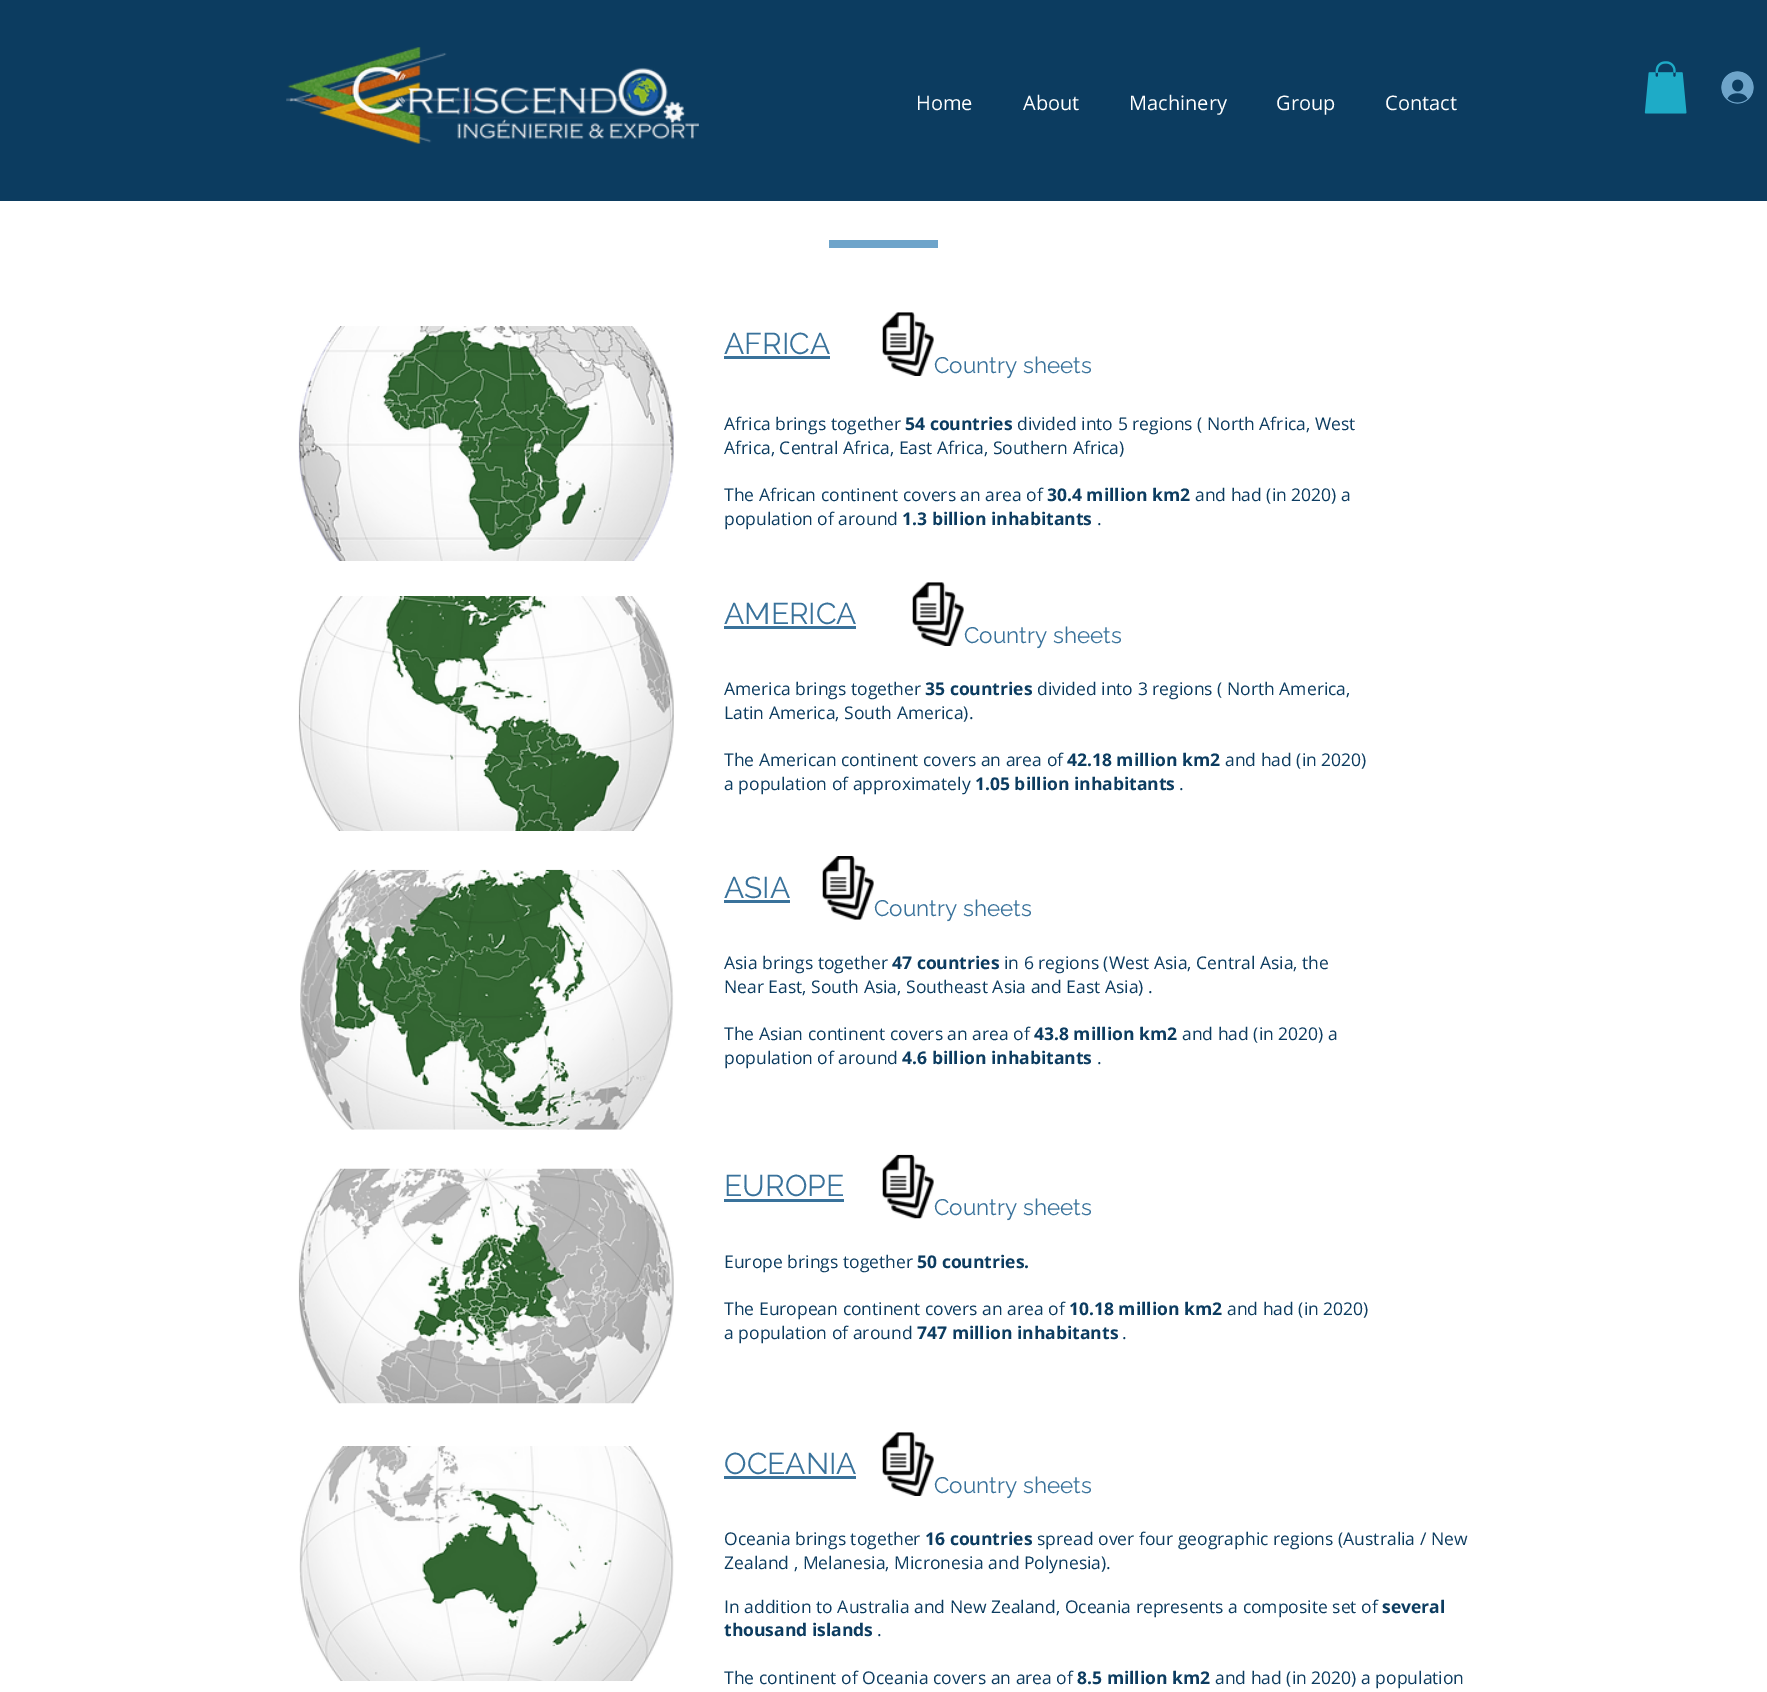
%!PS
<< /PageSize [1767 1692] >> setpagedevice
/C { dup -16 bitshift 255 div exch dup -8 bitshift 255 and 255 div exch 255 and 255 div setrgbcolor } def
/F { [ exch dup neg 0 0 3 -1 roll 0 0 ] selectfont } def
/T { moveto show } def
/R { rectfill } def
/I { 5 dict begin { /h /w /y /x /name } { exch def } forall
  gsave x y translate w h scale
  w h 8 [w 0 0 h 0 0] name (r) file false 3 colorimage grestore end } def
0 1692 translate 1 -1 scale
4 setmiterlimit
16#FFFFFF C
0 0 1767 1692 R
16#0C3C60 C
0 0 1767 201 R
(1.rgb) 286 47 413 97 I
/OpenSans-Regular 20 F
16#FFFFFF C
(Home) 916 110 T
(About) 1023 110 T
(Machinery) 1129 110 T
(Group) 1276 110 T
(Contact) 1385 110 T
(2.rgb) 1644 61 43 53 I
(3.rgb) 1721 71 33 33 I
16#6EA4CA C
829 240 109 8 R
(4.rgb) 298 326 376 235 I
/Raleway-Regular 30 F
16#39729B C
(AFRICA) 724 354 T
724 356 106 3 R
(5.rgb) 882 312 52 64 I
/Raleway-Regular 22.5 F
(Country sheets) 934 373 T
/OpenSans-Regular 17.5 F
16#0C3C60 C
(Africa brings together) 724 430 T
/OpenSans-Bold 17.5 F
(54 countries) 905 430 T
/OpenSans-Regular 17.5 F
(divided into 5 regions \( North Africa, West) 1017 430 T
(Africa, Central Africa, East Africa, Southern Africa\)) 724 454 T
(The African continent covers an area of) 724 501 T
/OpenSans-Bold 17.5 F
(30.4 million km2) 1047 501 T
/OpenSans-Regular 17.5 F
(and had \(in 2020\) a) 1195 501 T
(population of around) 724 525 T
/OpenSans-Bold 17.5 F
(1.3 billion inhabitants) 902 525 T
/OpenSans-Regular 17.5 F
(.) 1097 525 T
(6.rgb) 298 596 376 235 I
/Raleway-Regular 30 F
16#39729B C
(AMERICA) 724 624 T
724 626 132 3 R
(5.rgb) 912 582 52 64 I
/Raleway-Regular 22.5 F
(Country sheets) 964 643 T
/OpenSans-Regular 17.5 F
16#0C3C60 C
(America brings together) 724 695 T
/OpenSans-Bold 17.5 F
(35 countries) 925 695 T
/OpenSans-Regular 17.5 F
(divided into 3 regions \( North America,) 1037 695 T
(Latin America, South America\).) 724 719 T
(The American continent covers an area of) 724 766 T
/OpenSans-Bold 17.5 F
(42.18 million km2) 1067 766 T
/OpenSans-Regular 17.5 F
(and had \(in 2020\)) 1225 766 T
(a population of approximately) 724 790 T
/OpenSans-Bold 17.5 F
(1.05 billion inhabitants) 975 790 T
/OpenSans-Regular 17.5 F
(.) 1179 790 T
(7.rgb) 300 869 374 261 I
/Raleway-Regular 30 F
16#39729B C
(ASIA) 724 898 T
724 900 66 3 R
(8.rgb) 822 856 52 64 I
/Raleway-Regular 22.5 F
(Country sheets) 874 916 T
/OpenSans-Regular 17.5 F
16#0C3C60 C
(Asia brings together) 724 969 T
/OpenSans-Bold 17.5 F
(47 countries) 892 969 T
/OpenSans-Regular 17.5 F
(in 6 regions \(West Asia, Central Asia, the) 1004 969 T
(Near East, South Asia, Southeast Asia and East Asia\) .) 724 993 T
(The Asian continent covers an area of) 724 1040 T
/OpenSans-Bold 17.5 F
(43.8 million km2) 1034 1040 T
/OpenSans-Regular 17.5 F
(and had \(in 2020\) a) 1182 1040 T
(population of around) 724 1064 T
/OpenSans-Bold 17.5 F
(4.6 billion inhabitants) 902 1064 T
/OpenSans-Regular 17.5 F
(.) 1097 1064 T
(9.rgb) 298 1168 376 236 I
/Raleway-Regular 30 F
16#39729B C
(EUROPE) 724 1196 T
724 1199 120 3 R
(10.rgb) 882 1154 52 65 I
/Raleway-Regular 22.5 F
(Country sheets) 934 1215 T
/OpenSans-Regular 17.5 F
16#0C3C60 C
(Europe brings together) 724 1268 T
/OpenSans-Bold 17.5 F
(50 countries.) 917 1268 T
/OpenSans-Regular 17.5 F
(The European continent covers an area of) 724 1315 T
/OpenSans-Bold 17.5 F
(10.18 million km2) 1069 1315 T
/OpenSans-Regular 17.5 F
(and had \(in 2020\)) 1227 1315 T
(a population of around) 724 1339 T
/OpenSans-Bold 17.5 F
(747 million inhabitants) 917 1339 T
/OpenSans-Regular 17.5 F
(.) 1122 1339 T
(11.rgb) 299 1446 375 235 I
/Raleway-Regular 30 F
16#39729B C
(OCEANIA) 724 1474 T
724 1476 132 3 R
(5.rgb) 882 1432 52 64 I
/Raleway-Regular 22.5 F
(Country sheets) 934 1493 T
/OpenSans-Regular 17.5 F
16#0C3C60 C
(Oceania brings together) 724 1545 T
/OpenSans-Bold 17.5 F
(16 countries) 925 1545 T
/OpenSans-Regular 17.5 F
(spread over four geographic regions \(Australia / New) 1037 1545 T
(Zealand , Melanesia, Micronesia and Polynesia\).) 724 1569 T
(In addition to Australia and New Zealand, Oceania represents a composite set of) 724 1613 T
/OpenSans-Bold 17.5 F
(several) 1382 1613 T
(thousand islands) 724 1636 T
/OpenSans-Regular 17.5 F
(.) 877 1636 T
(The continent of Oceania covers an area of) 724 1684 T
/OpenSans-Bold 17.5 F
(8.5 million km2) 1077 1684 T
/OpenSans-Regular 17.5 F
(and had \(in 2020\) a population) 1215 1684 T
showpage
